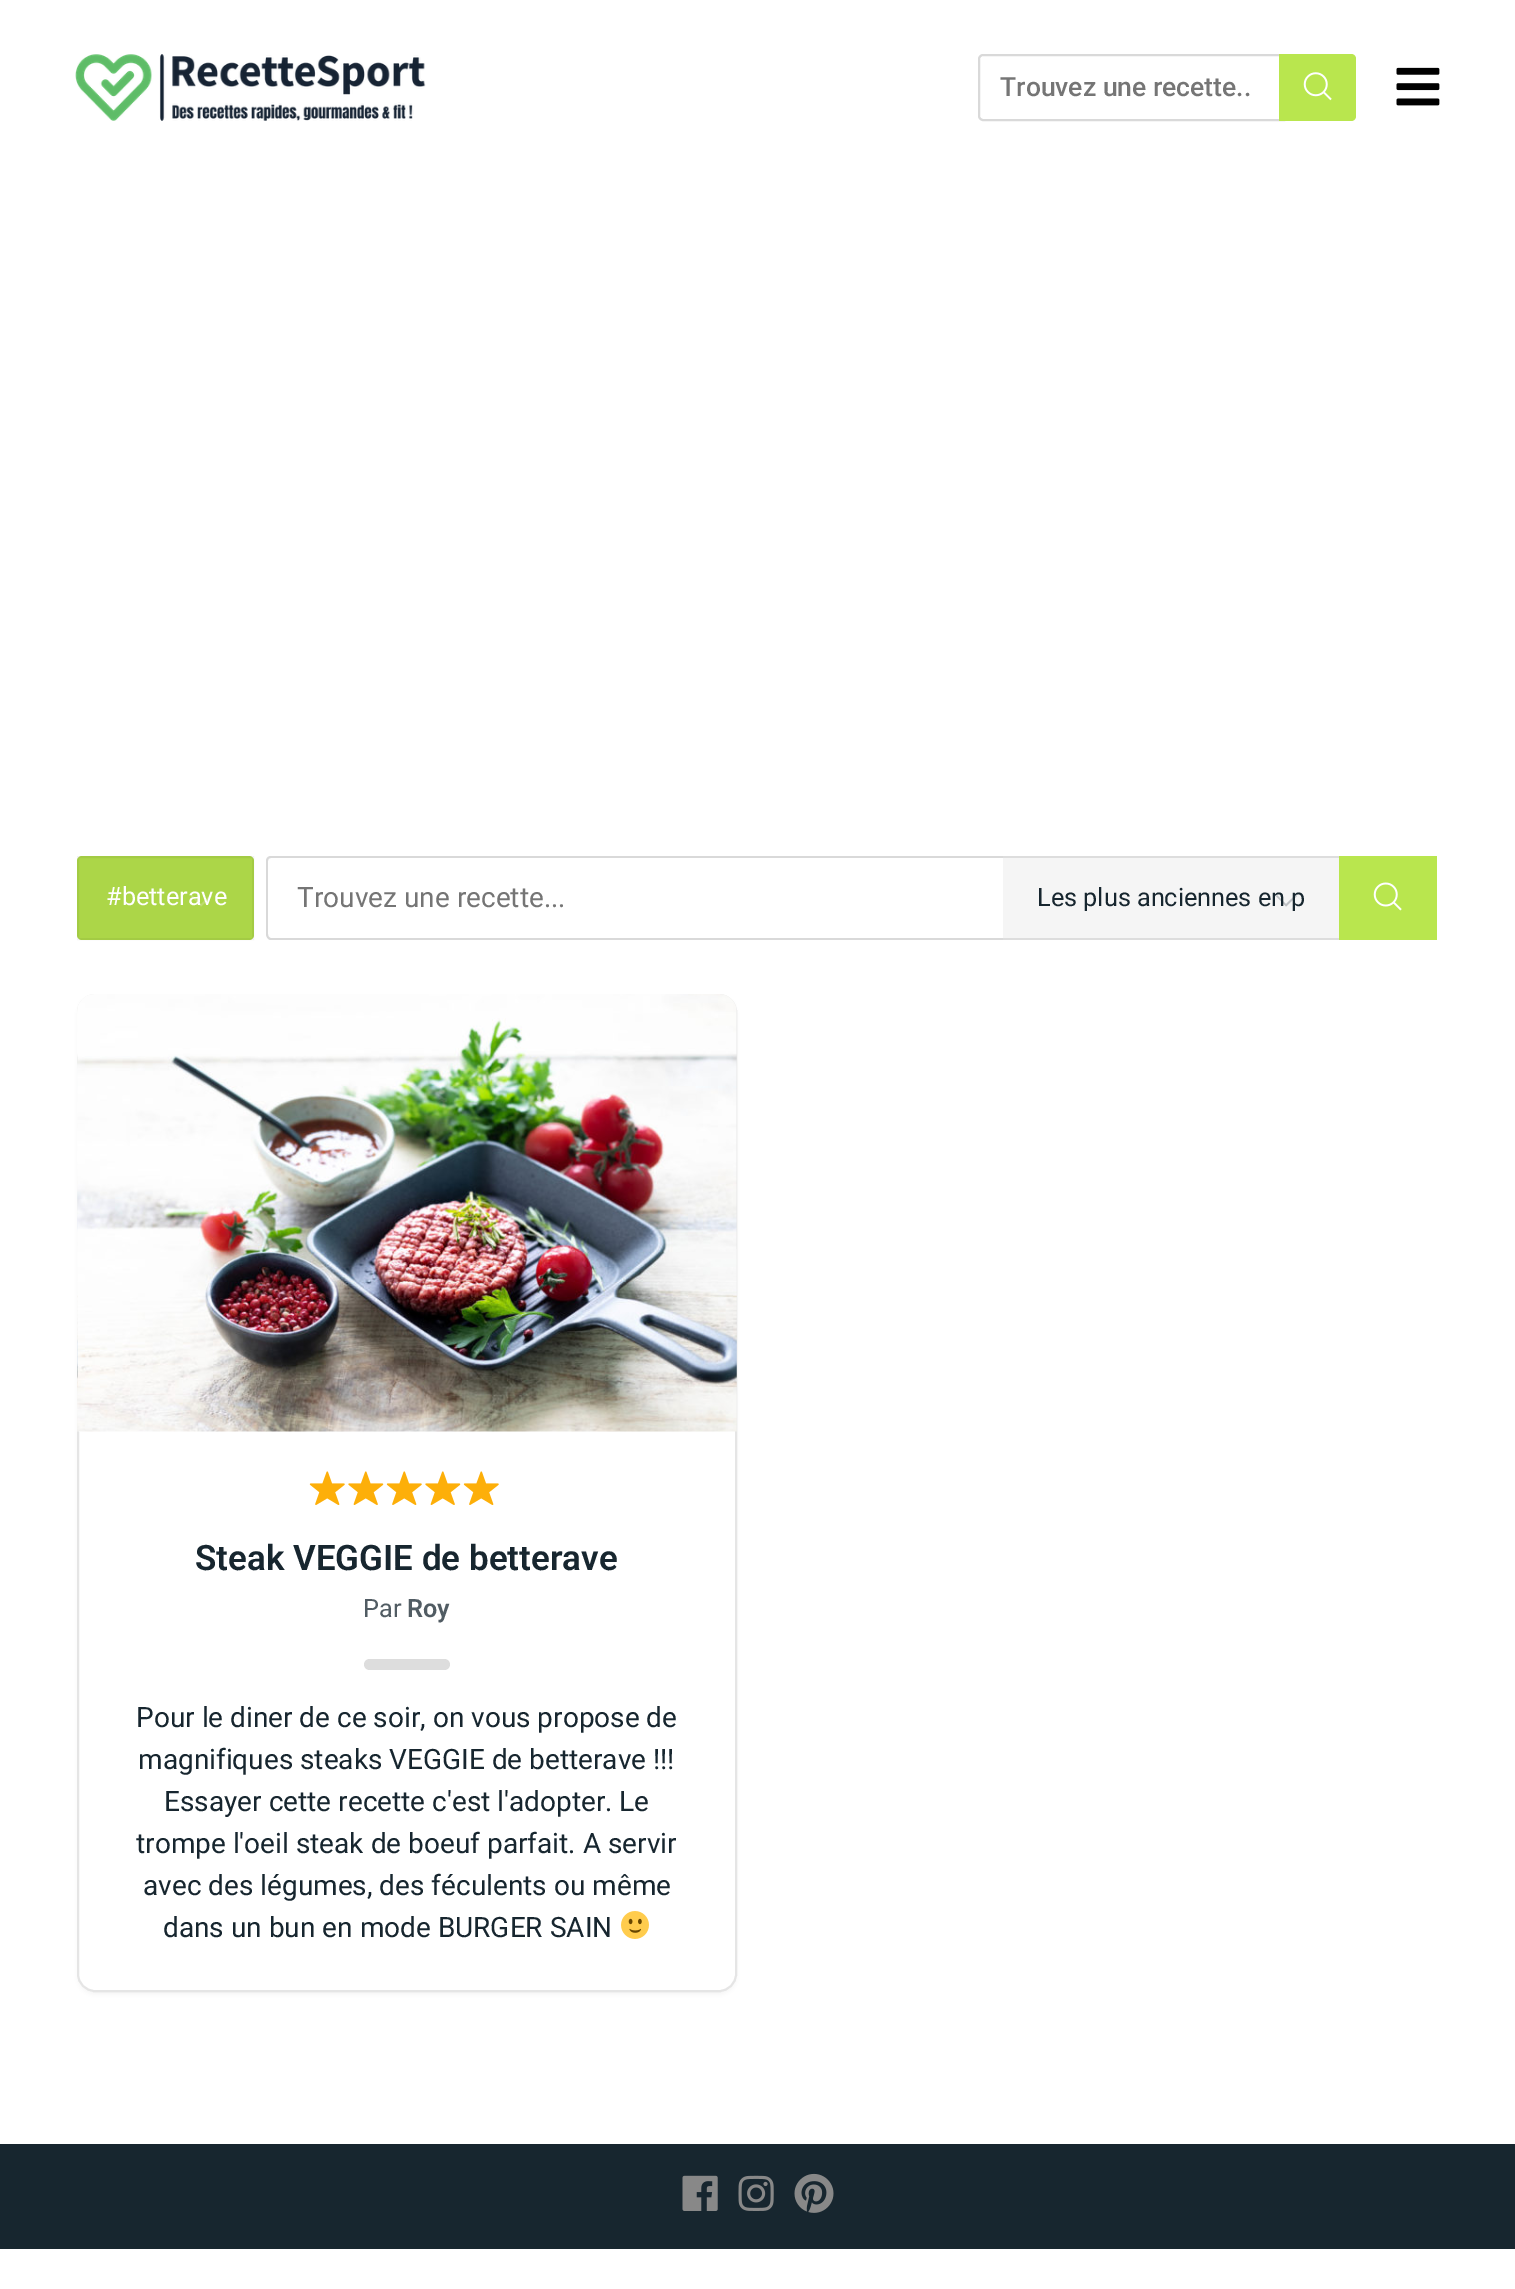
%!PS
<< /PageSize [1515 2289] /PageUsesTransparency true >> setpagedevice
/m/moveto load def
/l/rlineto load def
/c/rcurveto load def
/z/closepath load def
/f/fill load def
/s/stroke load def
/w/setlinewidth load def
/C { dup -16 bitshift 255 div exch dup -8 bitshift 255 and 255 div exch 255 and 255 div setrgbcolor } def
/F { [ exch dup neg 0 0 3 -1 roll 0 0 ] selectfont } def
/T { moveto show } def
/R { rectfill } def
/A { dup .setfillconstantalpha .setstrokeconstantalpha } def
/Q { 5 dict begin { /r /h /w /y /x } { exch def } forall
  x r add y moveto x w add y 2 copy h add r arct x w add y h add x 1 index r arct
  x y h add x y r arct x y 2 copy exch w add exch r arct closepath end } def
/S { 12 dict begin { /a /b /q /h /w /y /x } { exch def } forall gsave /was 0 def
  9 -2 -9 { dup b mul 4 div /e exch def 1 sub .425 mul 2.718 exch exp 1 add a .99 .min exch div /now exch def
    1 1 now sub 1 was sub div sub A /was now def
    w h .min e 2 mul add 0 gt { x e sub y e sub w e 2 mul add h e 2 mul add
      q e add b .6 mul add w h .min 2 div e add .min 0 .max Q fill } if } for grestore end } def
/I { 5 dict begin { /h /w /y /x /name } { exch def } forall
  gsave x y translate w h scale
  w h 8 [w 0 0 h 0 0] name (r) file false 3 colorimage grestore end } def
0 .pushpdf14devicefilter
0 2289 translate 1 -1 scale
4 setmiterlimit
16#FFFFFF C
0 0 1515 2289 R
(1.rgb) 75 54 351 67 I
16#D9D9D9 C
2 w
983 55 m 301 0 l 0 65 l -301 0 l -2 0 -4 -2 -4 -4 c 0 -57 l 0 -2 2 -4 4 -4 c z s
/Roboto-Medium 26.5 F
16#757575 C
(Trouvez une recette..) 1000 96 T
16#B9E64E C
1279 54 m 72 0 l 3 0 5 2 5 5 c 0 57 l 0 3 -2 5 -5 5 c -72 0 l z f
(2.rgb) 1303 72 29 29 I
(3.rgb) 1396 67 44 39 I
77 856 177 84 5 Q f
16#CBEC7A C
201 906.5 m -10 -10.5 l 1 -1 l 9 9 l 9.5 -9 l 1.5 1 l z f
0.07 A
16#000000 C
77 856 177 84 5 Q f
0.05 A
78 857 175 82 rectstroke
/Roboto-Regular 25.25 F
1 A
16#FFFFFF C
(#betterave) 106 905 T
16#D9D9D9 C
271 856 m 1064 0 l 3 0 5 2 5 5 c 0 73 l 0 3 -2 6 -5 6 c -1064 0 l -3 0 -5 -3 -5 -6 c 0 -73 l 0 -3 2 -5 5 -5 c z 271 858 m 1064 0 l 3 0 5 1 5 3 c 0 73 l 0 2 -2 4 -5 4 c -1064 0 l -2 0 -3 -2 -3 -4 c 0 -73 l 0 -2 1 -3 3 -3 c z eofill
/Roboto-Regular 28 F
16#757575 C
(Trouvez une recette...) 297 907 T
16#B9E64E C
1339 856 98 84 R
(4.rgb) 1373 882 29 29 I
16#F5F5F5 C
1003 858 336 80 R
16#DDDDDD C
1003 856 336 2 R
1003 938 336 2 R
16#BEC1C4 C
1286 906.5 m -10 -10.5 l 1 -1 l 9 9 l 9.5 -9 l 1.5 1 l z f
/Roboto-Regular 25.25 F
16#17262F C
(Les plus anciennes en p) 1037 906 T
16#000000 C
77 998 660 997 18 2.5 .04 S
16#FFFFFF C
77 994 660 998 18 Q f
0.1 A
16#000000 C
78 995 658 996 17 Q s
1 A
(5.rgb) 77 994 660 438 I
(6.rgb) 309 1471 36 34 I
(7.rgb) 348 1471 36 34 I
(6.rgb) 386 1471 36 34 I
(7.rgb) 425 1471 36 34 I
(6.rgb) 463 1471 36 34 I
/Roboto-SemiBold 35 F
16#17262F C
(Steak VEGGIE de betterave) 195 1570 T
/Roboto-Regular 25.25 F
16#515C63 C
(Par) 363 1617 T
/Roboto-SemiBold 25.25 F
(Roy) 407 1617 T
16#DDDDDD C
364 1659 86 11 5.5 Q f
/Roboto-Regular 28 F
16#17262F C
(Pour le diner de ce soir, on vous propose de) 136 1727 T
(magnifiques steaks VEGGIE de betterave !!!) 138 1769 T
(Essayer cette recette c'est l'adopter. Le) 164 1811 T
(trompe l'oeil steak de boeuf parfait. A servir) 136 1853 T
(avec des légumes, des féculents ou même) 143 1895 T
(dans un bun en mode BURGER SAIN) 163 1937 T
(8.rgb) 621 1911 28 28 I
0 2144 1515 105 R
(9.rgb) 682 2175 36 36 I
(10.rgb) 738 2175 36 36 I
(11.rgb) 794 2173 40 40 I
.poppdf14devicefilter showpage
